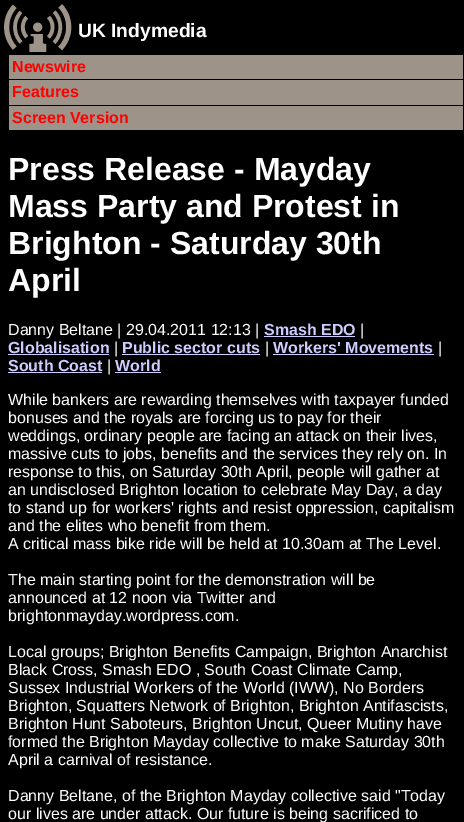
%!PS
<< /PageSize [464 822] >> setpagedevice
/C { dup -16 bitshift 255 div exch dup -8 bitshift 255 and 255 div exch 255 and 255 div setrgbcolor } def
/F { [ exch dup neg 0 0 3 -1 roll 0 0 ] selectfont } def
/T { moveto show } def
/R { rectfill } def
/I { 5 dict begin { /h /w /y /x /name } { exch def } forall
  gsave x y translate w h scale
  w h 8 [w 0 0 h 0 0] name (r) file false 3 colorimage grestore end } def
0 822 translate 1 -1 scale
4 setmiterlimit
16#000000 C
0 0 464 822 R
(1.rgb) 4 4 68 48 I
/LiberationSans-Bold 19.25 F
16#FFFFFF C
(UK Indymedia) 78 37 T
16#9D9388 C
9 55 454 24 R
/LiberationSans-Bold 16 F
16#FF0000 C
(Newswire) 12 72 T
16#9D9388 C
9 80 454 25 R
16#FF0000 C
(Features) 12 97 T
16#9D9388 C
9 106 454 24 R
16#FF0000 C
(Screen Version) 12 123 T
/LiberationSans-Bold 32 F
16#FFFFFF C
(Press Release - Mayday) 8 180 T
(Mass Party and Protest in) 8 217 T
(Brighton - Saturday 30th) 8 254 T
(April) 8 291 T
/LiberationSans-Regular 16 F
(Danny Beltane | 29.04.2011 12:13 |) 8 335 T
/LiberationSans-Bold 16 F
16#CCCCFF C
(Smash EDO) 264 335 T
264 336 91 1 R
/LiberationSans-Regular 16 F
16#FFFFFF C
(|) 360 335 T
/LiberationSans-Bold 16 F
16#CCCCFF C
(Globalisation) 8 353 T
8 354 101 1 R
/LiberationSans-Regular 16 F
16#FFFFFF C
(|) 114 353 T
/LiberationSans-Bold 16 F
16#CCCCFF C
(Public sector cuts) 122 353 T
122 354 138 1 R
/LiberationSans-Regular 16 F
16#FFFFFF C
(|) 265 353 T
/LiberationSans-Bold 16 F
16#CCCCFF C
(Workers' Movements) 273 353 T
273 354 161 1 R
/LiberationSans-Regular 16 F
16#FFFFFF C
(|) 438 353 T
/LiberationSans-Bold 16 F
16#CCCCFF C
(South Coast) 8 371 T
8 372 94 1 R
/LiberationSans-Regular 16 F
16#FFFFFF C
(|) 107 371 T
/LiberationSans-Bold 16 F
16#CCCCFF C
(World) 115 371 T
115 372 46 1 R
/LiberationSans-Regular 16 F
16#FFFFFF C
(While bankers are rewarding themselves with taxpayer funded) 8 405 T
(bonuses and the royals are forcing us to pay for their) 8 423 T
(weddings, ordinary people are facing an attack on their lives,) 8 441 T
(massive cuts to jobs, benefits and the services they rely on. In) 8 459 T
(response to this, on Saturday 30th April, people will gather at) 8 477 T
(an undisclosed Brighton location to celebrate May Day, a day) 8 495 T
(to stand up for workers' rights and resist oppression, capitalism) 8 513 T
(and the elites who benefit from them.) 8 531 T
(A critical mass bike ride will be held at 10.30am at The Level.) 8 549 T
(The main starting point for the demonstration will be) 8 585 T
(announced at 12 noon via Twitter and) 8 603 T
(brightonmayday.wordpress.com.) 8 621 T
(Local groups; Brighton Benefits Campaign, Brighton Anarchist) 8 657 T
(Black Cross, Smash EDO , South Coast Climate Camp,) 8 675 T
(Sussex Industrial Workers of the World \(IWW\), No Borders) 8 693 T
(Brighton, Squatters Network of Brighton, Brighton Antifascists,) 8 711 T
(Brighton Hunt Saboteurs, Brighton Uncut, Queer Mutiny have) 8 729 T
(formed the Brighton Mayday collective to make Saturday 30th) 8 747 T
(April a carnival of resistance.) 8 765 T
(Danny Beltane, of the Brighton Mayday collective said "Today) 8 801 T
(our lives are under attack. Our future is being sacrificed to) 8 819 T
showpage
